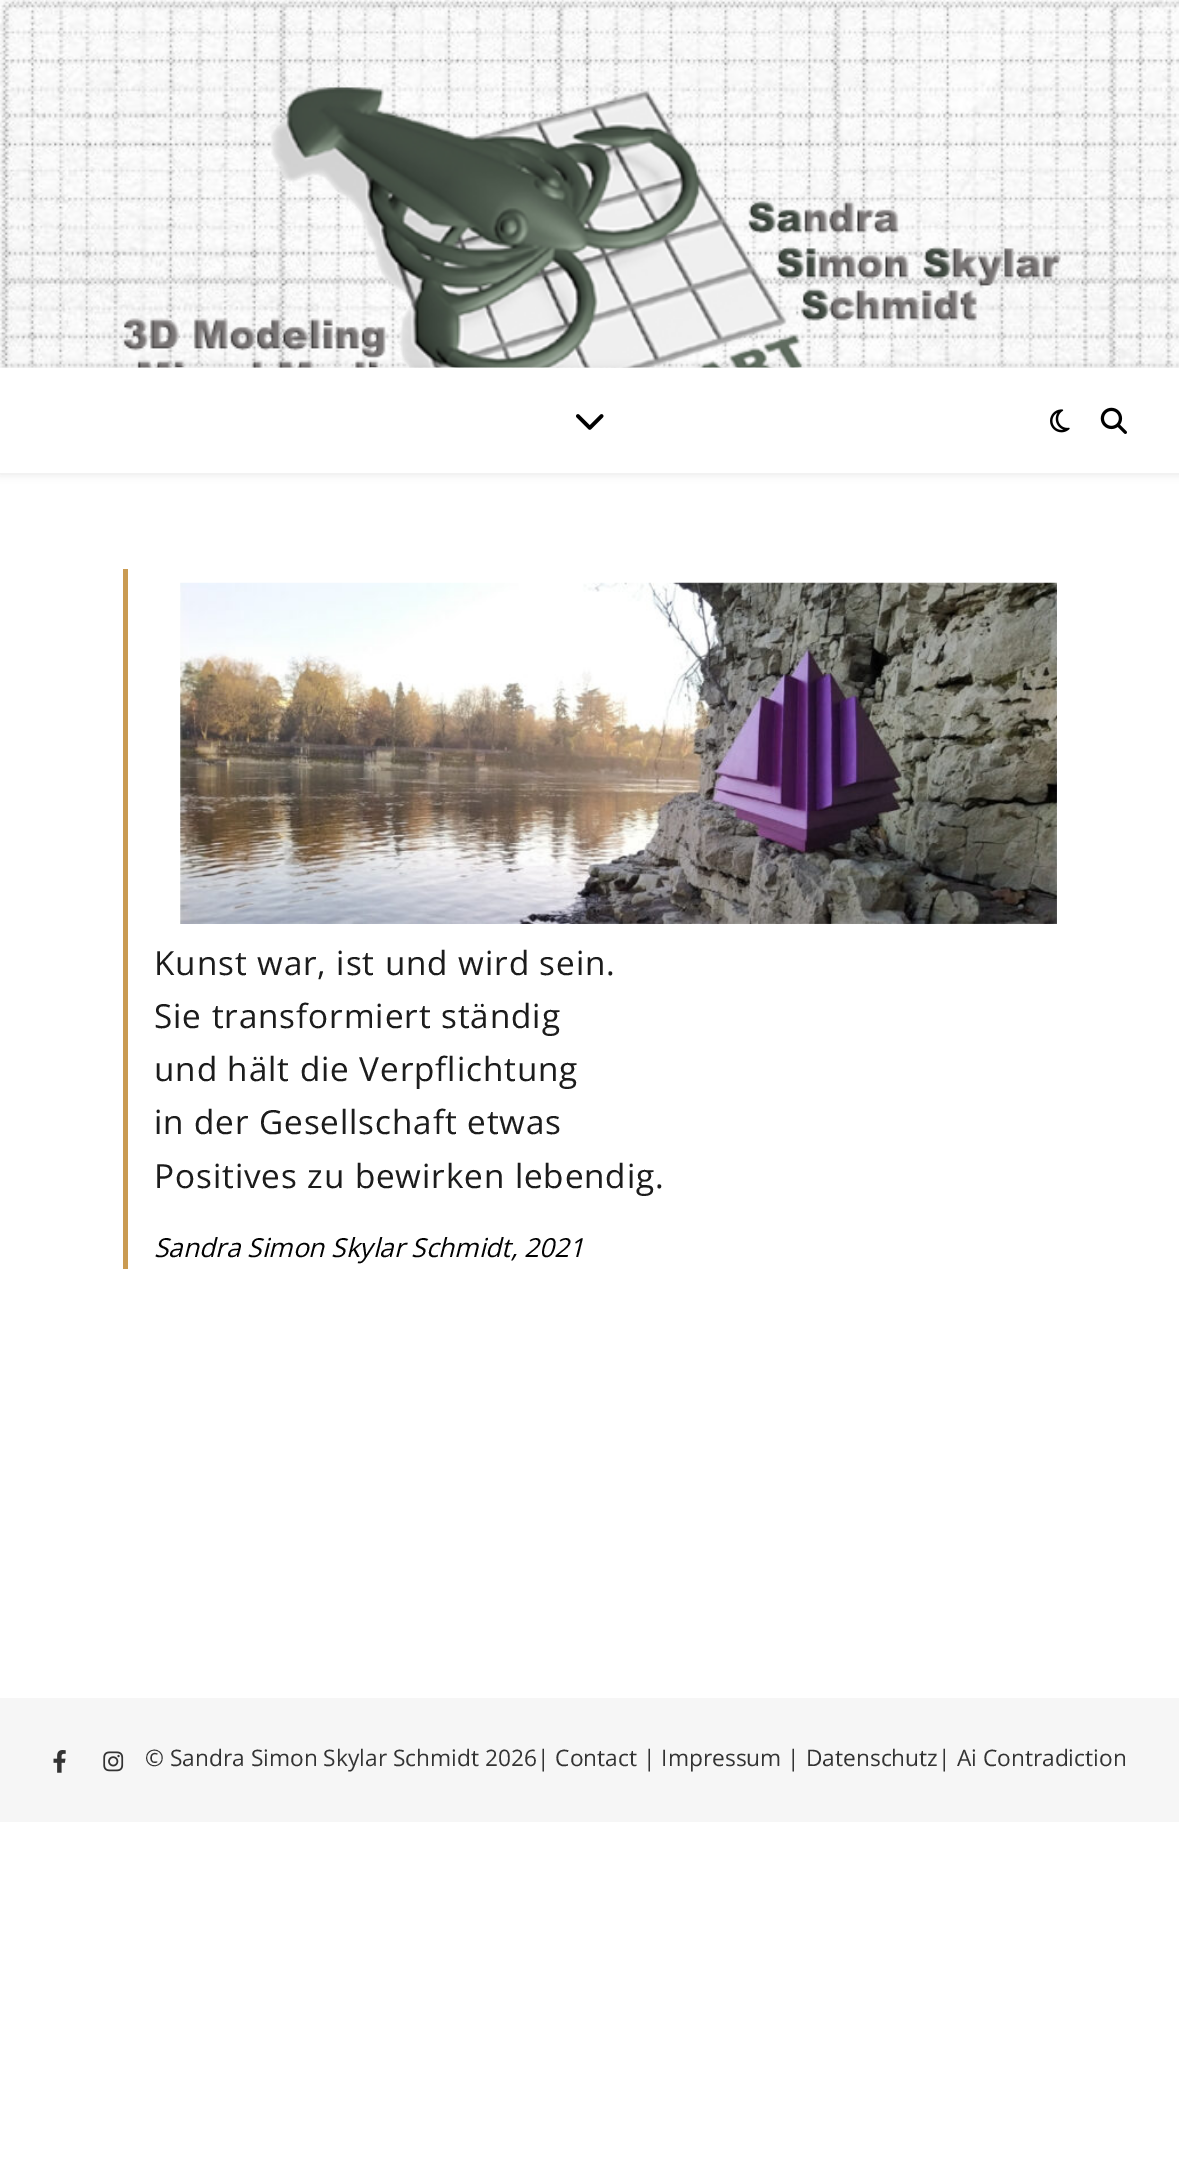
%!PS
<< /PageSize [1179 2177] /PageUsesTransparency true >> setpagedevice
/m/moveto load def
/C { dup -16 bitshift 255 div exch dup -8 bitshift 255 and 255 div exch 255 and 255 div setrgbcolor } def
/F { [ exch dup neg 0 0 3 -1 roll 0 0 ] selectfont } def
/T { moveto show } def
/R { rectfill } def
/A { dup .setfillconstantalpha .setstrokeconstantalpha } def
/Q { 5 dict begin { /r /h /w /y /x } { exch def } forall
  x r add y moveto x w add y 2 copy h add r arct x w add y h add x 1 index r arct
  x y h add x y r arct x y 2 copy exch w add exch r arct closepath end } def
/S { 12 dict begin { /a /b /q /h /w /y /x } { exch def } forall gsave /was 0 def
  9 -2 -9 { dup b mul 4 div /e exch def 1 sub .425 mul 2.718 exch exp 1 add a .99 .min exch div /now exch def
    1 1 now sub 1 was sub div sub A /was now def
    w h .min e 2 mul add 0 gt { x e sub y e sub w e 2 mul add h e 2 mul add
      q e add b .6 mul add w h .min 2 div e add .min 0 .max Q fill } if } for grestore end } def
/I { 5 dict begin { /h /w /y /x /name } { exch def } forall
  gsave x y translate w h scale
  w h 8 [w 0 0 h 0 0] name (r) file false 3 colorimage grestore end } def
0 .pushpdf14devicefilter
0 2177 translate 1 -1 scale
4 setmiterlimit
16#FFFFFF C
0 0 1179 2177 R
(1.rgb) 0 0 1179 368 I
(2.rgb) 122 87 939 281 I
16#000000 C
0 369 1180 105 0 4.5 .1 S
16#FFFFFF C
0 368 1179 105 R
(3.rgb) 576 414 28 16 I
(4.rgb) 1050 409 20 24 I
(5.rgb) 1100 407 27 27 I
16#CA9B52 C
123 569 5 700 R
(6.rgb) 180 582 877 342 I
/OpenSans-Regular 33.25 F
16#1C1C1C C
154 975 m .9 0 (Kunst war, ist und wird sein.) ashow
154 1028 m .9 0 (Sie transformiert ständig) ashow
154 1081 m .9 0 (und hält die Verpflichtung) ashow
154 1134 m .9 0 (in der Gesellschaft etwas) ashow
154 1188 m .9 0 (Positives zu bewirken lebendig.) ashow
/OpenSans-Italic 26.25 F
16#030303 C
(Sandra Simon Skylar Schmidt, 2021) 154 1257 T
16#F6F6F6 C
0 1698 1179 124 R
(7.rgb) 53 1750 13 23 I
(8.rgb) 103 1751 21 21 I
/OpenSans-Regular 22.75 F
16#333333 C
(© Sandra Simon Skylar Schmidt 2026| Contact | Impressum | Datenschutz| Ai Contradiction) 145 1766 T
.poppdf14devicefilter showpage
